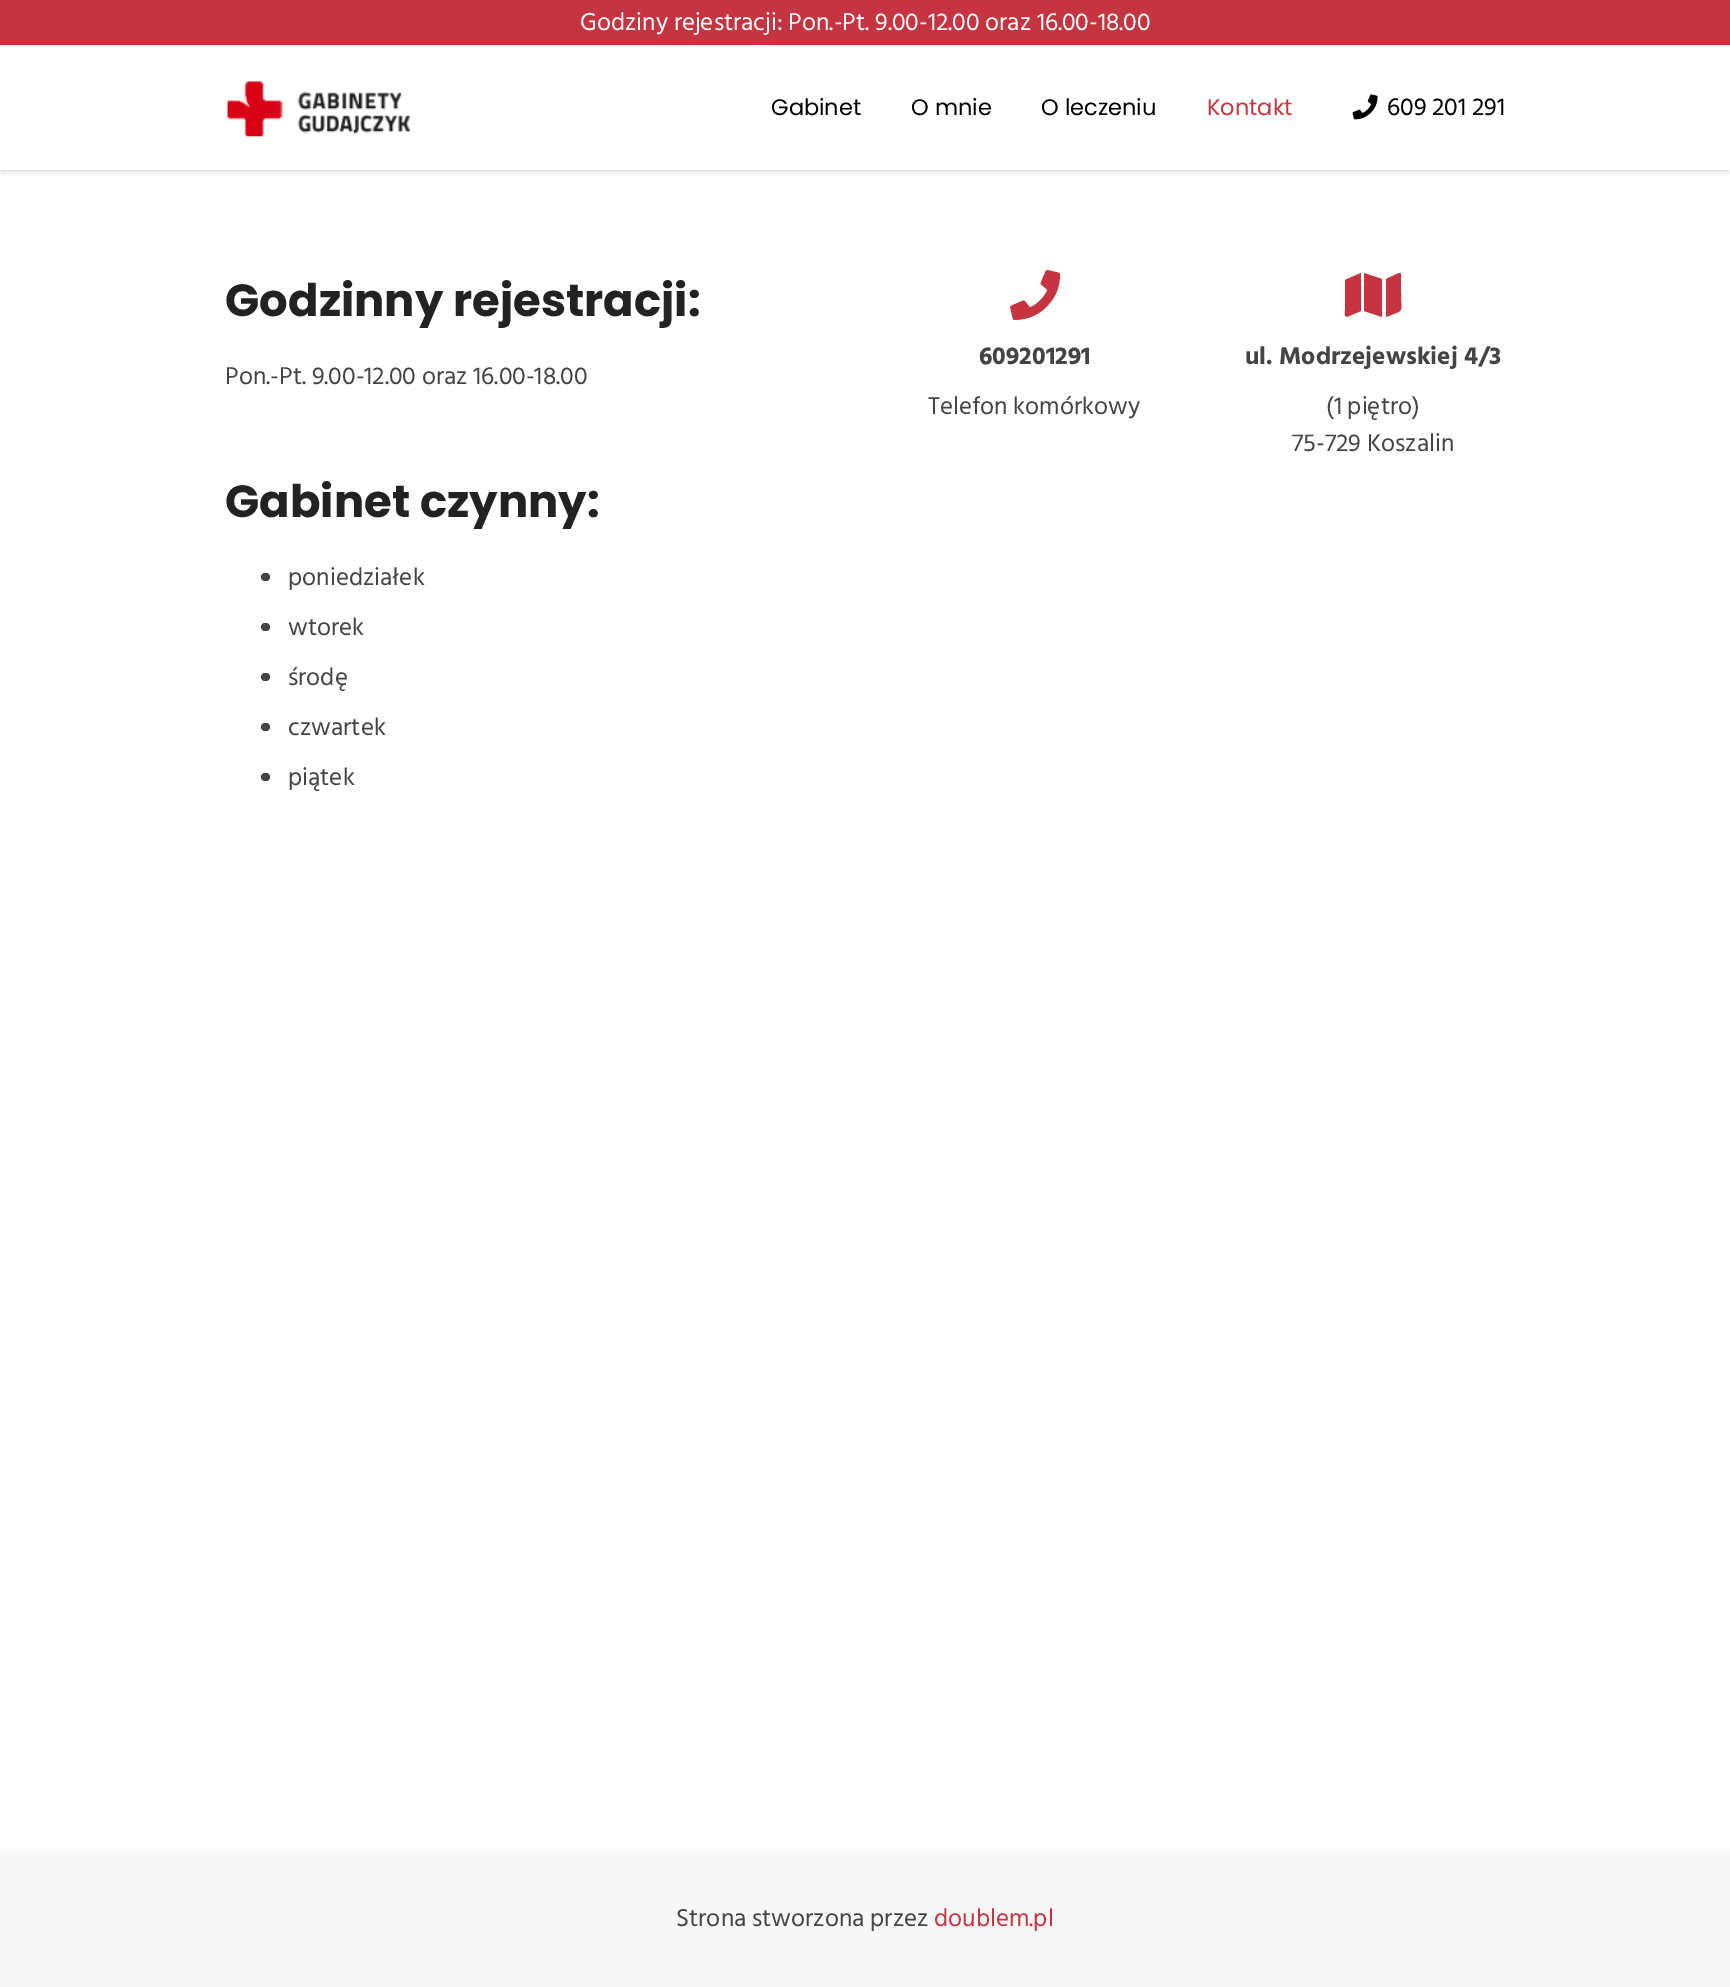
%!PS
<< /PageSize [1730 1987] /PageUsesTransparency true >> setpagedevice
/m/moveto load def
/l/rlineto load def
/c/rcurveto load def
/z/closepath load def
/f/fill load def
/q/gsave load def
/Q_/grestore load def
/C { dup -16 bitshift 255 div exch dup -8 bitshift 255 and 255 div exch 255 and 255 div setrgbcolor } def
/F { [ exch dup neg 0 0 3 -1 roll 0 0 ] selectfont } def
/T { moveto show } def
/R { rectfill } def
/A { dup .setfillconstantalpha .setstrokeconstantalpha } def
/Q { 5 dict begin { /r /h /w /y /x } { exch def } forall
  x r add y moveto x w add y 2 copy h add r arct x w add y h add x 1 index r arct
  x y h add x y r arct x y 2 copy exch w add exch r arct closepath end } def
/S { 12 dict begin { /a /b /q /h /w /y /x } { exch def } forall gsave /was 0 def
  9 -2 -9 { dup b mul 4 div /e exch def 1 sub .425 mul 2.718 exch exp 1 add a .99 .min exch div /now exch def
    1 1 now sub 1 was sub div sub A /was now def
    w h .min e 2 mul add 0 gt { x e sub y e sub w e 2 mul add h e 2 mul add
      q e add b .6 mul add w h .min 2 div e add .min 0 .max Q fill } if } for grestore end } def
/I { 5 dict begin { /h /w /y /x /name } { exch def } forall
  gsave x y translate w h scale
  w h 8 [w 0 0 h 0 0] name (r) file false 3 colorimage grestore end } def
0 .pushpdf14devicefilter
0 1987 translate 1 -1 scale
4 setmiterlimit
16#FFFFFF C
0 0 1730 1987 R
16#C63341 C
0 0 1730 45 R
/HindSiliguri-Regular 25 F
16#FFFFFF C
(Godziny rejestracji: Pon.-Pt. 9.00-12.00 oraz 16.00-18.00) 580 30 T
q
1 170 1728 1 rectclip
16#000000 C
1 49 1728 122 0 .5 .05 S
Q_
q
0 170 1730 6 rectclip
16#000000 C
1 50 1728 123 0 3 .1 S
Q_
(1.rgb) 227 81 184 56 I
/Poppins-Regular 22.5 F
16#000000 C
(Gabinet) 771 115 T
(O mnie) 911 115 T
(O leczeniu) 1041 115 T
16#C63341 C
(Kontakt) 1207 115 T
(2.rgb) 1352 94 26 26 I
/HindSiliguri-Regular 25 F
16#000000 C
(609 201 291) 1387 115 T
/Poppins-Bold 45 F
16#222222 C
(Godzinny rejestracji:) 225 316 T
/HindSiliguri-Regular 25 F
16#444444 C
(Pon.-Pt. 9.00-12.00 oraz 16.00-18.00) 225 384 T
/Poppins-Bold 45 F
16#222222 C
(Gabinet czynny:) 225 517 T
16#444444 C
261 573 9 8 4 Q f
/HindSiliguri-Regular 25 F
(poniedziałek) 288 585 T
261 623 9 8 4 Q f
(wtorek) 288 635 T
261 673 9 8 4 Q f
(środę) 288 685 T
261 723 9 8 4 Q f
(czwartek) 288 735 T
261 773 9 8 4 Q f
(piątek) 288 785 T
(3.rgb) 1010 270 51 50 I
/HindSiliguri-Bold 25 F
(609201291) 979 364 T
/HindSiliguri-Regular 25 F
(Telefon komórkowy) 928 414 T
16#C63341 C
1345 282 m 0 -2 1 -3 2 -3 c 14 -6 l 0 38 l -12 5 l -5 2 -4 -1 -4 -6 c z 1364 311 m 0 -38 l 18 6 l 0 38 l z 1399 273 m 1 0 2 0 2 1 c 0 18 l 0 23 4 17 -15 25 c 0 -38 l z f
/HindSiliguri-Bold 25 F
16#444444 C
(ul. Modrzejewskiej 4/3) 1245 364 T
/HindSiliguri-Regular 25 F
(\(1 piętro\)) 1326 414 T
(75-729 Koszalin) 1292 451 T
16#F7F7F7 C
0 1850 1730 137 R
16#444444 C
(Strona stworzona przez) 676 1926 T
16#C63341 C
(doublem.pl) 934 1926 T
.poppdf14devicefilter showpage
